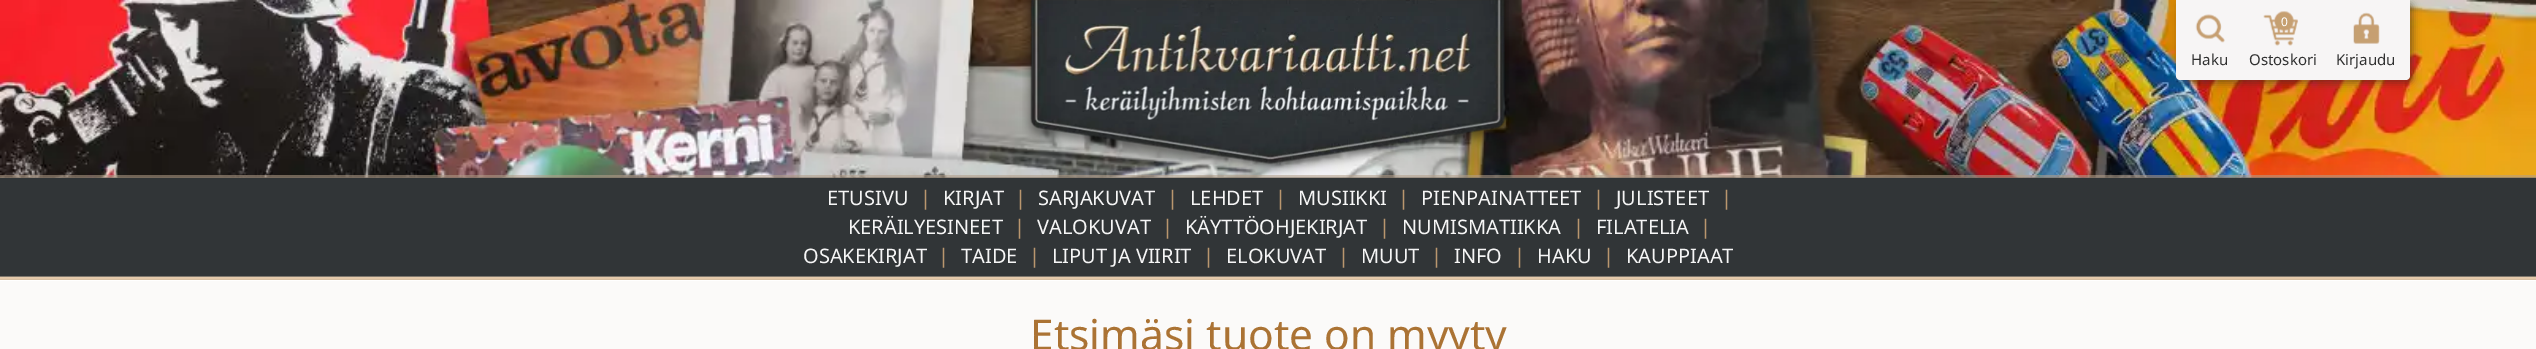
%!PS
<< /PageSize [2536 349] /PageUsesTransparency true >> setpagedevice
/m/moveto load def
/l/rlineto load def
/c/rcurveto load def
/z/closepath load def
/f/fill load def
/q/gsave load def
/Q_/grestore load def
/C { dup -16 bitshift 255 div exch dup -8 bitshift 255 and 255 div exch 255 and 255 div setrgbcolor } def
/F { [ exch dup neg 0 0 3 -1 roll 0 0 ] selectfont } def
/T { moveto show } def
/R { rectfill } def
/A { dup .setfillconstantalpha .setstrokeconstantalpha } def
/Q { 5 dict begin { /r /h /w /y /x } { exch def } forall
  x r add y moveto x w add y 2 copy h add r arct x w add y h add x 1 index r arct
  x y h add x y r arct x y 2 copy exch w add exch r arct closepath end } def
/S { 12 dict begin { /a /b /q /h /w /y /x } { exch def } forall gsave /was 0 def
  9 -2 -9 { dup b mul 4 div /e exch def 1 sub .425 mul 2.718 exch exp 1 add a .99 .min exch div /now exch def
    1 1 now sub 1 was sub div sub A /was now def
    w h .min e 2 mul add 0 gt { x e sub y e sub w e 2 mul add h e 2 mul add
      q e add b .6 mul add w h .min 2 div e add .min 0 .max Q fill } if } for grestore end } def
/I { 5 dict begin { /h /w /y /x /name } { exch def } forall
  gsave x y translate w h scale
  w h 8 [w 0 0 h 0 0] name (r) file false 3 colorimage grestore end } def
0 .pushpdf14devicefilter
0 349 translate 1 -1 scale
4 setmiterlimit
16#FBFAF9 C
0 0 2536 349 R
16#313537 C
0 177 2536 99 R
(4.rgb) 0 0 2536 178 I
16#382F21 C
2179 3 234 80 4 4 .54 S
16#F7F5F5 C
2176 0 m 234 0 l 0 76 l 0 2 -2 4 -4 4 c -226 0 l -2 0 -4 -2 -4 -4 c z f
(1.rgb) 2195 14 30 29 I
/NotoSans-Regular 15 F
16#303030 C
(Haku) 2191 65 T
(2.rgb) 2263 11 35 35 I
/NotoSans-Regular 12 F
16#FFFFFF C
(0) 2281 26 T
/NotoSans-Regular 15 F
16#303030 C
(Ostoskori) 2249 65 T
(3.rgb) 2353 12 27 32 I
(Kirjaudu) 2336 65 T
(5.rgb) 1022 0 487 177 I
0.57 A
16#B19D88 C
0 175 2536 3 R
/NotoSans-Regular 20 F
1 A
16#F6F6F6 C
(ETUSIVU) 827 205 T
16#B9966E C
(|) 920 205 T
16#F6F6F6 C
(KIRJAT) 943 205 T
16#B9966E C
(|) 1015 205 T
16#F6F6F6 C
(SARJAKUVAT) 1038 205 T
16#B9966E C
(|) 1167 205 T
16#F6F6F6 C
(LEHDET) 1190 205 T
16#B9966E C
(|) 1275 205 T
16#F6F6F6 C
(MUSIIKKI) 1298 205 T
16#B9966E C
(|) 1398 205 T
16#F6F6F6 C
(PIENPAINATTEET) 1421 205 T
16#B9966E C
(|) 1593 205 T
16#F6F6F6 C
(JULISTEET) 1616 205 T
16#B9966E C
(|) 1721 205 T
16#F6F6F6 C
(KERÄILYESINEET) 848 234 T
16#B9966E C
(|) 1014 234 T
16#F6F6F6 C
(VALOKUVAT) 1037 234 T
16#B9966E C
(|) 1162 234 T
16#F6F6F6 C
(KÄYTTÖOHJEKIRJAT) 1185 234 T
16#B9966E C
(|) 1379 234 T
16#F6F6F6 C
(NUMISMATIIKKA) 1402 234 T
16#B9966E C
(|) 1573 234 T
16#F6F6F6 C
(FILATELIA) 1596 234 T
16#B9966E C
(|) 1700 234 T
16#F6F6F6 C
(OSAKEKIRJAT) 803 263 T
16#B9966E C
(|) 938 263 T
16#F6F6F6 C
(TAIDE) 961 263 T
16#B9966E C
(|) 1029 263 T
16#F6F6F6 C
(LIPUT JA VIIRIT) 1052 263 T
16#B9966E C
(|) 1203 263 T
16#F6F6F6 C
(ELOKUVAT) 1226 263 T
16#B9966E C
(|) 1338 263 T
16#F6F6F6 C
(MUUT) 1361 263 T
16#B9966E C
(|) 1431 263 T
16#F6F6F6 C
(INFO) 1454 263 T
16#B9966E C
(|) 1514 263 T
16#F6F6F6 C
(HAKU) 1537 263 T
16#B9966E C
(|) 1603 263 T
16#F6F6F6 C
(KAUPPIAAT) 1626 263 T
q 0 276 m 2536 0 l 0 5 l -2536 0 l z clip newpath
<< /ShadingType 2 /ColorSpace /DeviceRGB /Coords [1268 276 1268 281] /Extend [true true] /Function << /FunctionType 3 /Domain [0 1] /Functions [<< /FunctionType 2 /Domain [0 1] /C0 [.298 .306 .306] /C1 [.957 .843 .71] /N 1 >> << /FunctionType 2 /Domain [0 1] /C0 [.957 .843 .71] /C1 [.835 .729 .604] /N 1 >> << /FunctionType 2 /Domain [0 1] /C0 [.835 .729 .604] /C1 [1 1 1] /N 1 >>] /Bounds [.33 .67] /Encode [0 1 0 1 0 1] >> >> shfill Q_
/NotoSans-Regular 42.5 F
16#AB7334 C
(Etsimäsi tuote on myyty) 1030 350 T
.poppdf14devicefilter showpage
